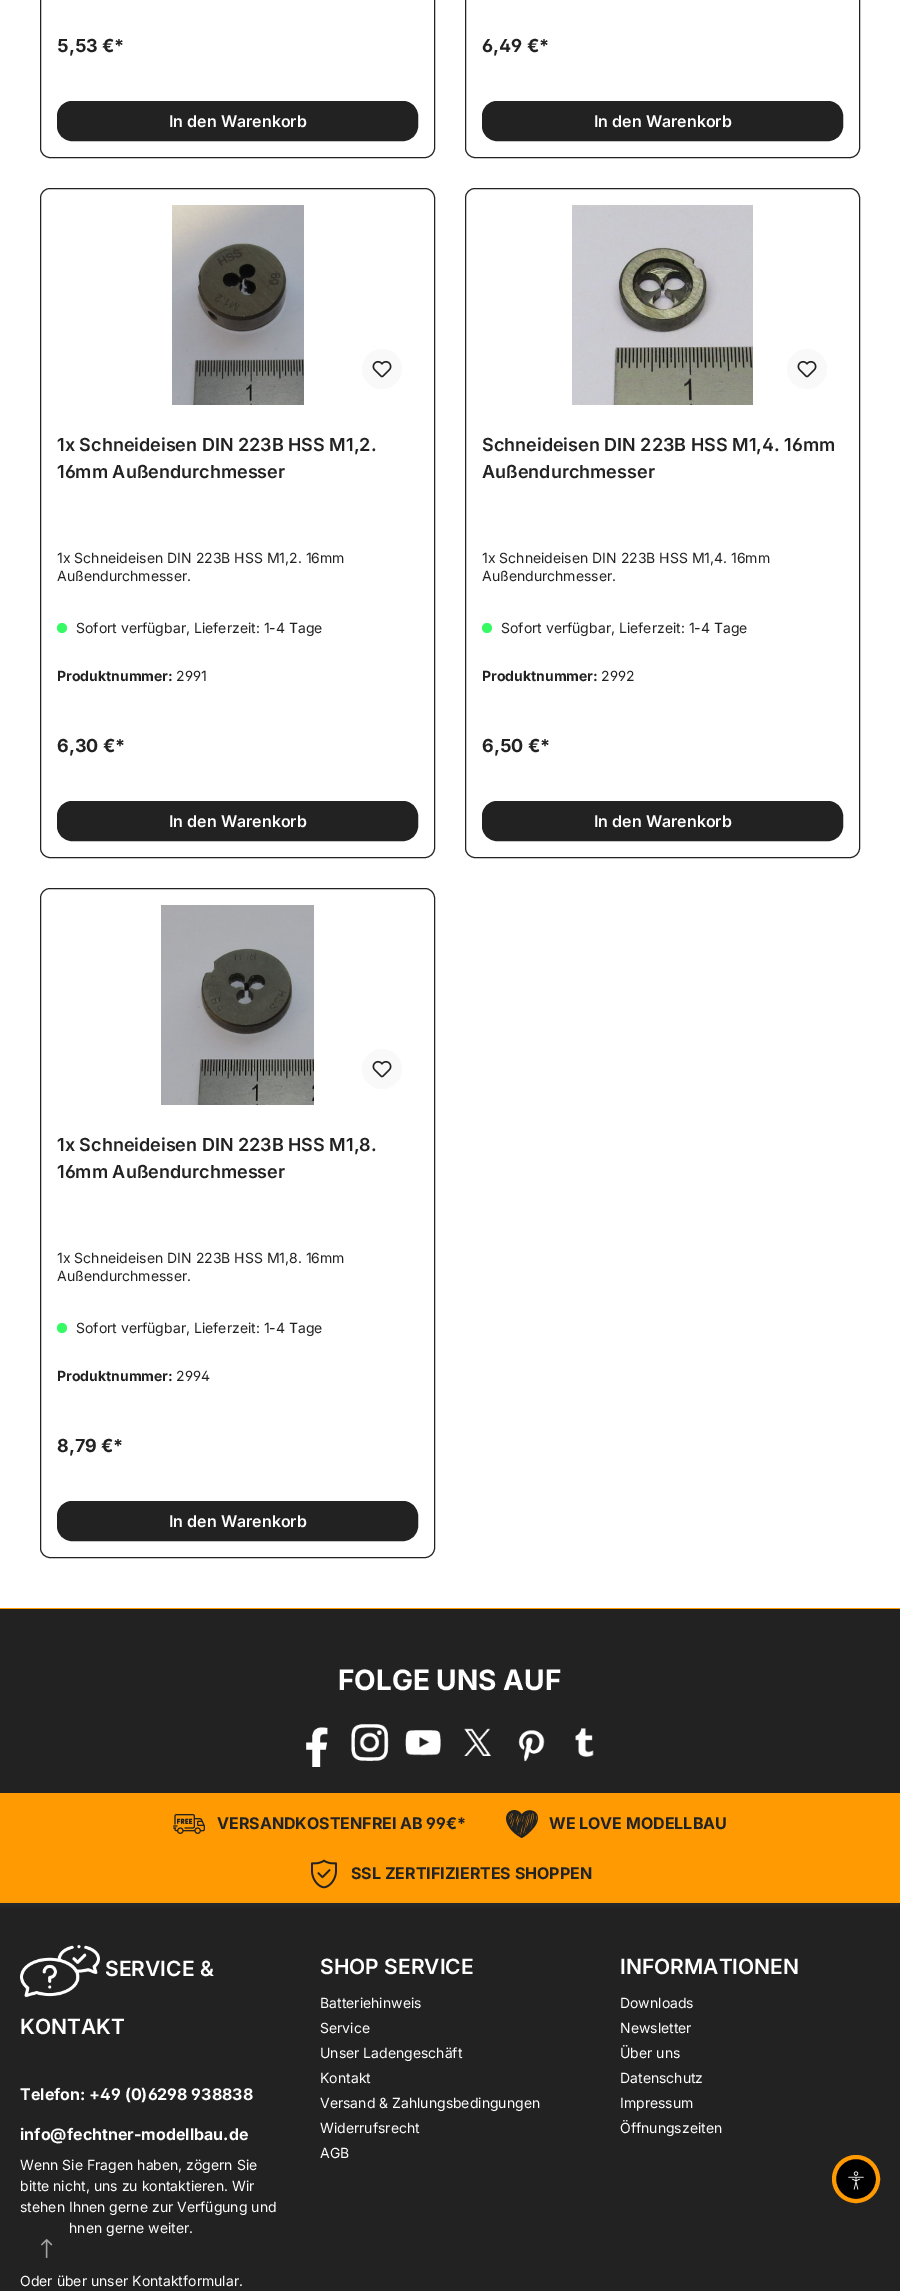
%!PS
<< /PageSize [900 2291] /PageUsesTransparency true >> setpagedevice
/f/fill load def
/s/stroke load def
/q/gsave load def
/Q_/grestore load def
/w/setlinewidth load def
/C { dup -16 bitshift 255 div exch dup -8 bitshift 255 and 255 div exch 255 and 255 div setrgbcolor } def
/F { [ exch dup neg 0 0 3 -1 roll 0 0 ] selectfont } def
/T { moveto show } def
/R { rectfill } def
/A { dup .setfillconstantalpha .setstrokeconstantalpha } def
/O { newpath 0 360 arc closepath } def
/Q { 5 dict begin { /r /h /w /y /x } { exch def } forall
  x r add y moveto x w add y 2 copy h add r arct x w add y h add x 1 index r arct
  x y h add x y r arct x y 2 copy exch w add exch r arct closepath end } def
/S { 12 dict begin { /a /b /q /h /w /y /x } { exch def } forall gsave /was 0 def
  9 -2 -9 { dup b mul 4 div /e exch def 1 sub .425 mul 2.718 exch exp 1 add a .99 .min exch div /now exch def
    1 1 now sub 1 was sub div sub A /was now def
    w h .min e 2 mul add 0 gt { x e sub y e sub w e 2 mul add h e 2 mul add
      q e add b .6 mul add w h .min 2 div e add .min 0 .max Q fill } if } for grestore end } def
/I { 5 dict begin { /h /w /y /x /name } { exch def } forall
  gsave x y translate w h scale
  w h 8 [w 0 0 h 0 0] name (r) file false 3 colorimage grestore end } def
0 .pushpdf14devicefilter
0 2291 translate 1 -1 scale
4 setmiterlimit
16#FFFFFF C
0 0 900 2291 R
16#222222 C
40.5 -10.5 394 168 9.5 Q s
/Inter-Bold 18 F
(5,53 €*) 57 52 T
57.5 101.5 360 39 14.5 Q q f Q_
s
/Inter-SemiBold 16 F
16#FFFFFF C
(In den Warenkorb) 169 127 T
16#222222 C
465.5 -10.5 394 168 9.5 Q s
/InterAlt-Bold 18 F
(6,49 €*) 482 52 T
482.5 101.5 360 39 14.5 Q q f Q_
s
/Inter-SemiBold 16 F
16#FFFFFF C
(In den Warenkorb) 594 127 T
16#222222 C
40.5 188.5 394 669 9.5 Q s
(1.rgb) 172 205 132 200 I
16#F9F9F9 C
382 369 20 O f
(2.rgb) 372 360 20 18 I
/Inter-SemiBold 18 F
16#222222 C
(1x Schneideisen DIN 223B HSS M1,2.) 57 451 T
/InterAlt-SemiBold 18 F
(16mm Außendurchmesser) 57 478 T
/Inter-Regular 14 F
(1x Schneideisen DIN 223B HSS M1,2. 16mm) 57 563 T
(Außendurchmesser.) 57 581 T
16#35FA63 C
62 628 5 O f
16#222222 C
(Sofort verfügbar, Lieferzeit: 1-4 Tage) 76 633 T
/Inter-Bold 14 F
(Produktnummer:) 57 681 T
/InterAlt-Regular 14 F
(2991) 176 681 T
/Inter-Bold 18 F
(6,30 €*) 57 752 T
57.5 801.5 360 39 14.5 Q q f Q_
s
/Inter-SemiBold 16 F
16#FFFFFF C
(In den Warenkorb) 169 827 T
16#222222 C
465.5 188.5 394 669 9.5 Q s
(3.rgb) 572 205 181 200 I
16#F9F9F9 C
807 369 20 O f
(2.rgb) 797 360 20 18 I
/InterAlt-SemiBold 18 F
16#222222 C
(Schneideisen DIN 223B HSS M1,4. 16mm) 482 451 T
/Inter-SemiBold 18 F
(Außendurchmesser) 482 478 T
/Inter-Regular 14 F
(1x Schneideisen DIN 223B HSS M1,4. 16mm) 482 563 T
(Außendurchmesser.) 482 581 T
16#35FA63 C
487 628 5 O f
16#222222 C
(Sofort verfügbar, Lieferzeit: 1-4 Tage) 501 633 T
/Inter-Bold 14 F
(Produktnummer:) 482 681 T
/InterAlt-Regular 14 F
(2992) 601 681 T
/Inter-Bold 18 F
(6,50 €*) 482 752 T
482.5 801.5 360 39 14.5 Q q f Q_
s
/Inter-SemiBold 16 F
16#FFFFFF C
(In den Warenkorb) 594 827 T
16#222222 C
40.5 888.5 394 669 9.5 Q s
(4.rgb) 161 905 153 200 I
16#F9F9F9 C
382 1069 20 O f
(2.rgb) 372 1060 20 18 I
/Inter-SemiBold 18 F
16#222222 C
(1x Schneideisen DIN 223B HSS M1,8.) 57 1151 T
/InterAlt-SemiBold 18 F
(16mm Außendurchmesser) 57 1178 T
/Inter-Regular 14 F
(1x Schneideisen DIN 223B HSS M1,8. 16mm) 57 1263 T
(Außendurchmesser.) 57 1281 T
16#35FA63 C
62 1328 5 O f
16#222222 C
(Sofort verfügbar, Lieferzeit: 1-4 Tage) 76 1333 T
/Inter-Bold 14 F
(Produktnummer:) 57 1381 T
/InterAlt-Regular 14 F
(2994) 176 1381 T
/Inter-Bold 18 F
(8,79 €*) 57 1452 T
57.5 1501.5 360 39 14.5 Q q f Q_
s
/Inter-SemiBold 16 F
16#FFFFFF C
(In den Warenkorb) 169 1527 T
16#222222 C
0 1609 900 682 R
16#FF9A03 C
0 1608 900 1 R
/Inter-Bold 28 F
16#FFFFFF C
(FOLGE UNS AUF) 338 1690 T
(5.rgb) 306 1727 22 40 I
(6.rgb) 351 1724 38 37 I
(7.rgb) 405 1730 36 26 I
(8.rgb) 464 1728 27 28 I
(9.rgb) 518 1730 27 32 I
(10.rgb) 575 1728 19 29 I
16#393F48 C
0 1796 900 110 0 2.5 .3 S
16#FF9A02 C
0 1793 900 110 R
(11.rgb) 173 1814 32 20 I
/InterAlt-Bold 16 F
16#222222 C
(VERSANDKOSTENFREI AB 99€*) 217 1829 T
(12.rgb) 506 1810 32 28 I
/Inter-Bold 16 F
(WE LOVE MODELLBAU) 549 1829 T
(13.rgb) 311 1859 26 30 I
(SSL ZERTIFIZIERTES SHOPPEN) 351 1879 T
(14.rgb) 20 1944 80 54 I
/Inter-SemiBold 21 F
16#FFFFFF C
(SERVICE &) 105 1976 T
(KONTAKT) 20 2034 T
/InterAlt-Bold 16 F
(Telefon: +49 \(0\)6298 938838) 20 2100 T
/Inter-Bold 16 F
(info@fechtner-modellbau.de) 20 2140 T
/Inter-Regular 14 F
(Wenn Sie Fragen haben, zögern Sie) 20 2170 T
(bitte nicht, uns zu kontaktieren. Wir) 20 2191 T
(stehen Ihnen gerne zur Verfügung und) 20 2212 T
(hnen gerne weiter.) 69 2233 T
(Oder über unser Kontaktformular.) 20 2286 T
/Inter-SemiBold 21 F
(SHOP SERVICE) 320 1974 T
/Inter-Regular 14 F
(Batteriehinweis) 320 2008 T
(Service) 320 2033 T
(Unser Ladengeschäft) 320 2058 T
(Kontakt) 320 2083 T
(Versand & Zahlungsbedingungen) 320 2108 T
(Widerrufsrecht) 320 2133 T
(AGB) 320 2158 T
/Inter-SemiBold 21 F
(INFORMATIONEN) 620 1974 T
/Inter-Regular 14 F
(Downloads) 620 2008 T
(Newsletter) 620 2033 T
(Über uns) 620 2058 T
(Datenschutz) 620 2083 T
(Impressum) 620 2108 T
(Öffnungszeiten) 620 2133 T
16#000000 C
856 2179 22 O q f Q_
16#FF9A03 C
4 w
s
(15.rgb) 848 2171 16 19 I
(16.rgb) 41 2239 12 19 I
.poppdf14devicefilter showpage
